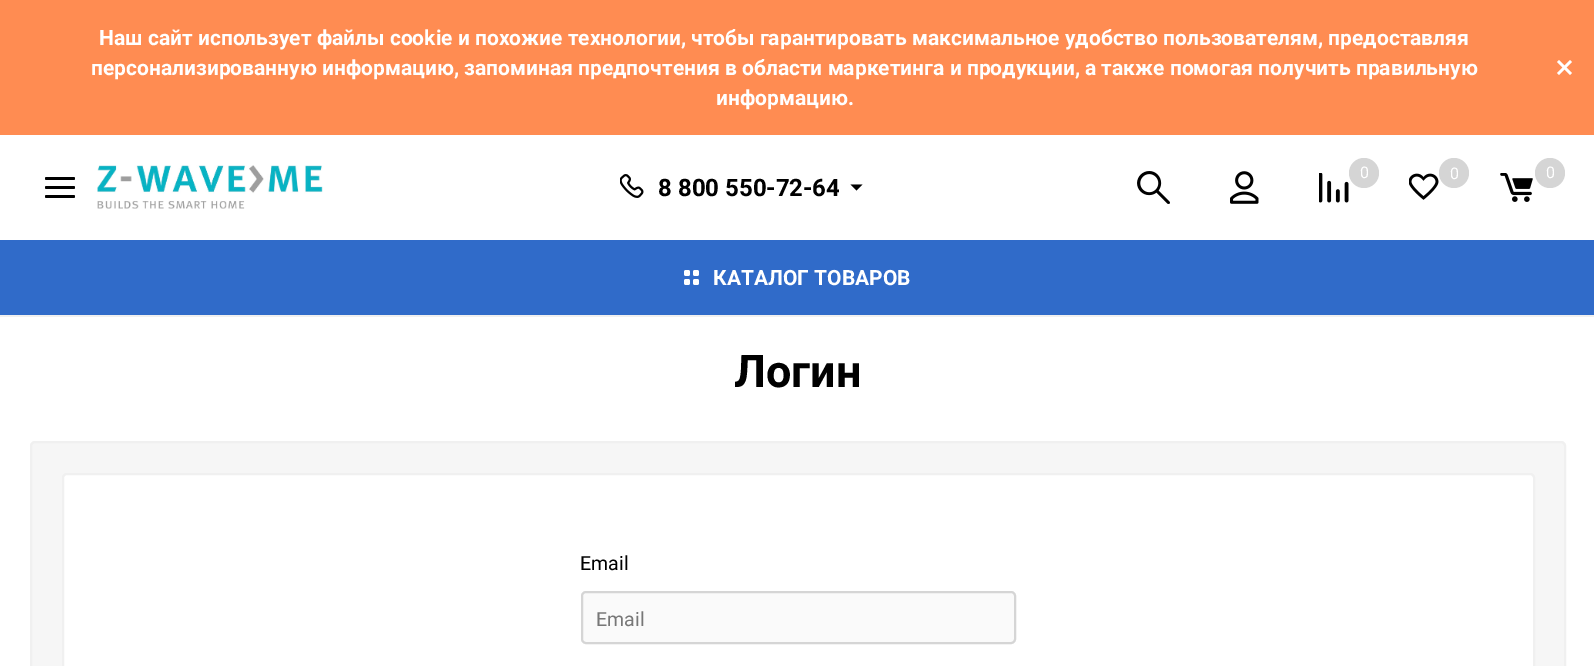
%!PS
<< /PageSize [1594 666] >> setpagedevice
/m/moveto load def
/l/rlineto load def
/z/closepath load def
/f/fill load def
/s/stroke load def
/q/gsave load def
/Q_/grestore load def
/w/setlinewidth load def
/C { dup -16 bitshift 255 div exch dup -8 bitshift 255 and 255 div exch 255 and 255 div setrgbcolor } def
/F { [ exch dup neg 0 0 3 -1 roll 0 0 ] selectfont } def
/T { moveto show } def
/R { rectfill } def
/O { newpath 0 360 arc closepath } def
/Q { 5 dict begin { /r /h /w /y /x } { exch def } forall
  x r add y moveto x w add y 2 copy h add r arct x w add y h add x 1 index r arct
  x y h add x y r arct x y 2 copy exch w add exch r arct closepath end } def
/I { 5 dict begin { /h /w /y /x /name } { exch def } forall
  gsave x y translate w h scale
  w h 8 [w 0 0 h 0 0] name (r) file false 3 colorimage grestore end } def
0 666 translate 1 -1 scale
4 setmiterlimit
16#FFFFFF C
0 0 1594 666 R
16#FF8C52 C
0 0 1594 135 R
/Roboto-Bold 21 F
16#FFFFFF C
(Наш сайт использует файлы cookie и похожие технологии, чтобы гарантировать максимальное удобство пользователям, предоставляя) 99 45 T
(персонализированную информацию, запоминая предпочтения в области маркетинга и продукции, а также помогая получить правильную) 91 75 T
1570 60 m 2 2 l -13 13 l -2 -2 l z f
1557 62 m 2 -2 l 13 13 l -2 2 l z f
(информацию.) 716 105 T
16#F0F0F0 C
0 315 1594 2 R
16#000000 C
45 186 30 3 1.5 Q f
45 177 30 3 1.5 Q f
45 195 30 3 1.5 Q f
(1.rgb) 97 165 226 44 I
(2.rgb) 1137 171 33 33 I
(3.rgb) 1230 171 29 33 I
(4.rgb) 1319 173 30 30 I
16#D5D5D5 C
1364 173 15 O f
/Roboto-Regular 16 F
16#FFFFFF C
(0) 1360 178 T
(5.rgb) 1409 173 30 27 I
16#D5D5D5 C
1454 173 15 O f
16#FFFFFF C
(0) 1450 179 T
(6.rgb) 1500 173 33 29 I
16#D5D5D5 C
1550 173 15 O f
16#FFFFFF C
(0) 1546 178 T
(7.rgb) 620 174 24 24 I
/Roboto-Bold 24 F
16#000000 C
(8 800 550-72-64) 658 196 T
850.5 184.5 m 12 0 l -6 6 l z f
16#306BC9 C
0 240 1594 75 R
(8.rgb) 684 270 15 15 I
/Roboto-Bold 21 F
16#FFFFFF C
(КАТАЛОГ ТОВАРОВ) 713 285 T
/Roboto-Bold 45 F
16#000000 C
(Логин) 734 387 T
16#F6F6F6 C
31 442 1534 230 4 Q q f Q_
16#F0F0F0 C
2 w
s
16#FFFFFF C
63 474 1471 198 4 Q q f Q_
16#F0F0F0 C
s
/Roboto-Regular 19.5 F
16#000000 C
(Email) 580 570 T
16#FAFAFA C
582 592 433 51 4 Q q f Q_
16#D5D5D5 C
s
16#777777 C
(Email) 596 626 T
showpage
